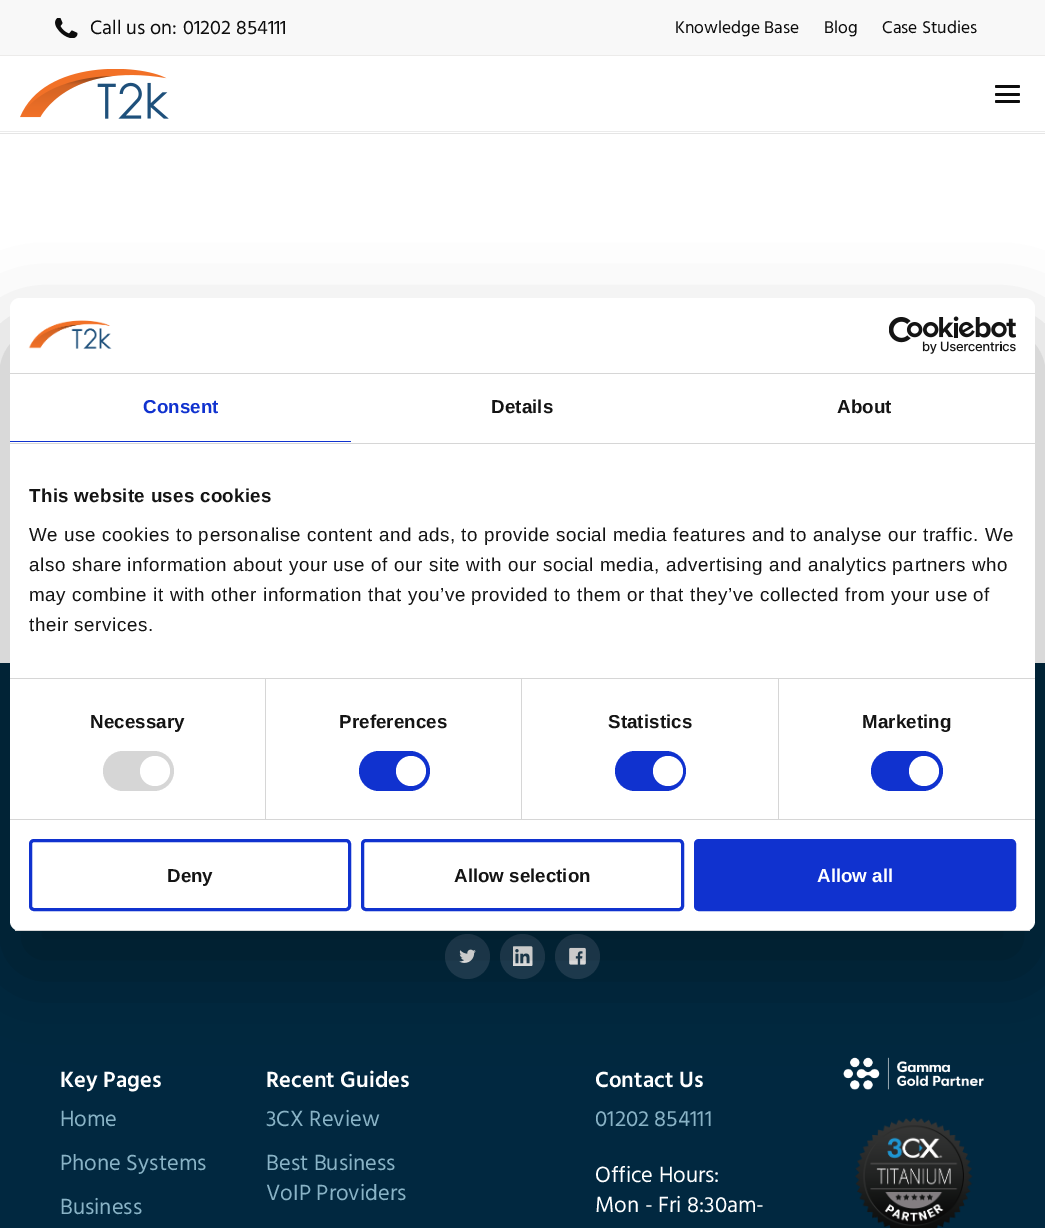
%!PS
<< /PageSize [1045 1228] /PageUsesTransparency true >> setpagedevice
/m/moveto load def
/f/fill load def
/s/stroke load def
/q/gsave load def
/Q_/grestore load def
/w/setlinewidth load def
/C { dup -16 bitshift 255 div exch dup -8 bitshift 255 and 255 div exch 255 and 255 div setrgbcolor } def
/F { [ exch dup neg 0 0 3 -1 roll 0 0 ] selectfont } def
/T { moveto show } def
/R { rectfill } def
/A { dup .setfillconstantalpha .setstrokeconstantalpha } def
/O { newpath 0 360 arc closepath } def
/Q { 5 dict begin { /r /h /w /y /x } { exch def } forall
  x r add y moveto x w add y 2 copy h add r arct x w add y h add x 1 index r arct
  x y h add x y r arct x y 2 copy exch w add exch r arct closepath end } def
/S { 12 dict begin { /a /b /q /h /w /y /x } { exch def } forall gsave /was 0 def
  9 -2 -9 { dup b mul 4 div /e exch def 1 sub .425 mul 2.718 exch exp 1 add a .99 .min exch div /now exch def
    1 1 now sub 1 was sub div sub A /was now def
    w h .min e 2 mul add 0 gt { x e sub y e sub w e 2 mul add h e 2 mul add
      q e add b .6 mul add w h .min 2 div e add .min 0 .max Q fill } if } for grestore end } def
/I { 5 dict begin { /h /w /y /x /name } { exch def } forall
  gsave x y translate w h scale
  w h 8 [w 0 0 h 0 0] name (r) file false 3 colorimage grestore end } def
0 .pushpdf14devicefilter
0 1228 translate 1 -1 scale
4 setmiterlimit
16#FFFFFF C
0 0 1045 1228 R
16#F8F8F8 C
0 0 1045 55 R
16#ECEBEA C
0 55 1045 1 R
(1.rgb) 55 18 23 20 I
/Hind-Regular 20 F
16#0D0D0D C
(Call us on:) 90 34 T
(01202 854111) 183 34 T
/Hind-Regular 17.5 F
(Knowledge Base) 675 33 T
(Blog) 824 33 T
(Case Studies) 882 33 T
16#E5E5E5 C
0 133 1045 1 R
16#EBEBEB C
0 131 1045 1 R
(2.rgb) 20 69 149 50 I
16#0D0D0D C
995 85 25 3 1.5 Q f
995 93 25 3 1.5 Q f
995 100 25 3 1.5 Q f
16#012840 C
0 663 1045 565 R
16#224459 C
467.5 956.5 22.5 O f
(5.rgb) 459 949 17 14 I
522.5 956.5 22.5 O f
(6.rgb) 513 946 20 20 I
577.5 956.5 22.5 O f
(7.rgb) 569 947 17 18 I
(8.rgb) 843 1057 141 33 I
16#000000 C
10 338 1025 633 10 42.5 .3 S
16#FFFFFF C
10 298 1025 633 10 Q f
16#D6D6D6 C
10 373 1025 1 R
(3.rgb) 28 320 84 29 I
(4.rgb) 889 316 127 38 I
10 443 1025 1 R
16#1032CF C
10 441 341 1 R
/LiberationSans-Bold 18.75 F
143 413 m .1 0 (Consent) ashow
16#141414 C
491 413 m .1 0 (Details) ashow
837 413 m .1 0 (About) ashow
16#D6D6D6 C
10 678 1025 1 R
16#141414 C
29 502 m .3 0 (This website uses cookies) ashow
/LiberationSans-Regular 18.75 F
29 541 m .62 0 (We use cookies to personalise content and ads, to provide social media features and to analyse our traffic. We) ashow
29 571 m .62 0 (also share information about your use of our site with our social media, advertising and analytics partners who) ashow
29 601 m .62 0 (may combine it with other information that you’ve provided to them or that they’ve collected from your use of) ashow
29 631 m .62 0 (their services.) ashow
16#D6D6D6 C
10 819 1025 1 R
265 679 1 140 R
/LiberationSans-Bold 18.75 F
16#141414 C
90 728 m .1 0 (Necessary) ashow
16#D6D6D6 C
103 751 71 40 20 Q f
16#FFFFFF C
155 771 15 O f
16#D6D6D6 C
521 679 1 140 R
16#141414 C
339 728 m .1 0 (Preferences) ashow
16#1032CF C
359 751 71 40 20 Q f
16#FFFFFF C
411 771 15 O f
16#D6D6D6 C
778 679 1 140 R
16#141414 C
608 728 m .1 0 (Statistics) ashow
16#1032CF C
615 751 71 40 20 Q f
16#FFFFFF C
668 771 15 O f
16#141414 C
862 728 m .1 0 (Marketing) ashow
16#1032CF C
871 751 72 40 20 Q f
16#FFFFFF C
924 771 15 O f
q
10 298 1025 633 10 Q clip newpath
16#D6D6D6 C
10 930 1025 1 R
Q_
16#1032CF C
3 w
30.5 840.5 319 69 3.5 Q s
16#141414 C
(Deny) 167 882 T
16#1032CF C
362.5 840.5 320 69 3.5 Q s
16#141414 C
(Allow selection) 454 882 T
16#1032CF C
695.5 840.5 319 69 3.5 Q q f Q_
s
16#FFFFFF C
(Allow all) 817 882 T
/Hind-SemiBold 22.5 F
(Key Pages) 60 1087 T
/Hind-Regular 22.5 F
16#89B3C6 C
(Home) 60 1126 T
(Phone Systems) 60 1170 T
(Business) 60 1214 T
/Hind-SemiBold 22.5 F
16#FFFFFF C
(Recent Guides) 266 1087 T
/Hind-Regular 22.5 F
16#89B3C6 C
(3CX Review) 266 1126 T
(Best Business) 266 1170 T
(VoIP Providers) 266 1200 T
/Hind-SemiBold 22.5 F
16#FFFFFF C
(Contact Us) 595 1087 T
/Hind-Regular 22.5 F
16#89B3C6 C
(01202 854111) 595 1126 T
16#FFFFFF C
(Office Hours:) 595 1182 T
(Mon - Fri 8:30am-) 595 1212 T
(9.rgb) 855 1118 118 110 I
.poppdf14devicefilter showpage
